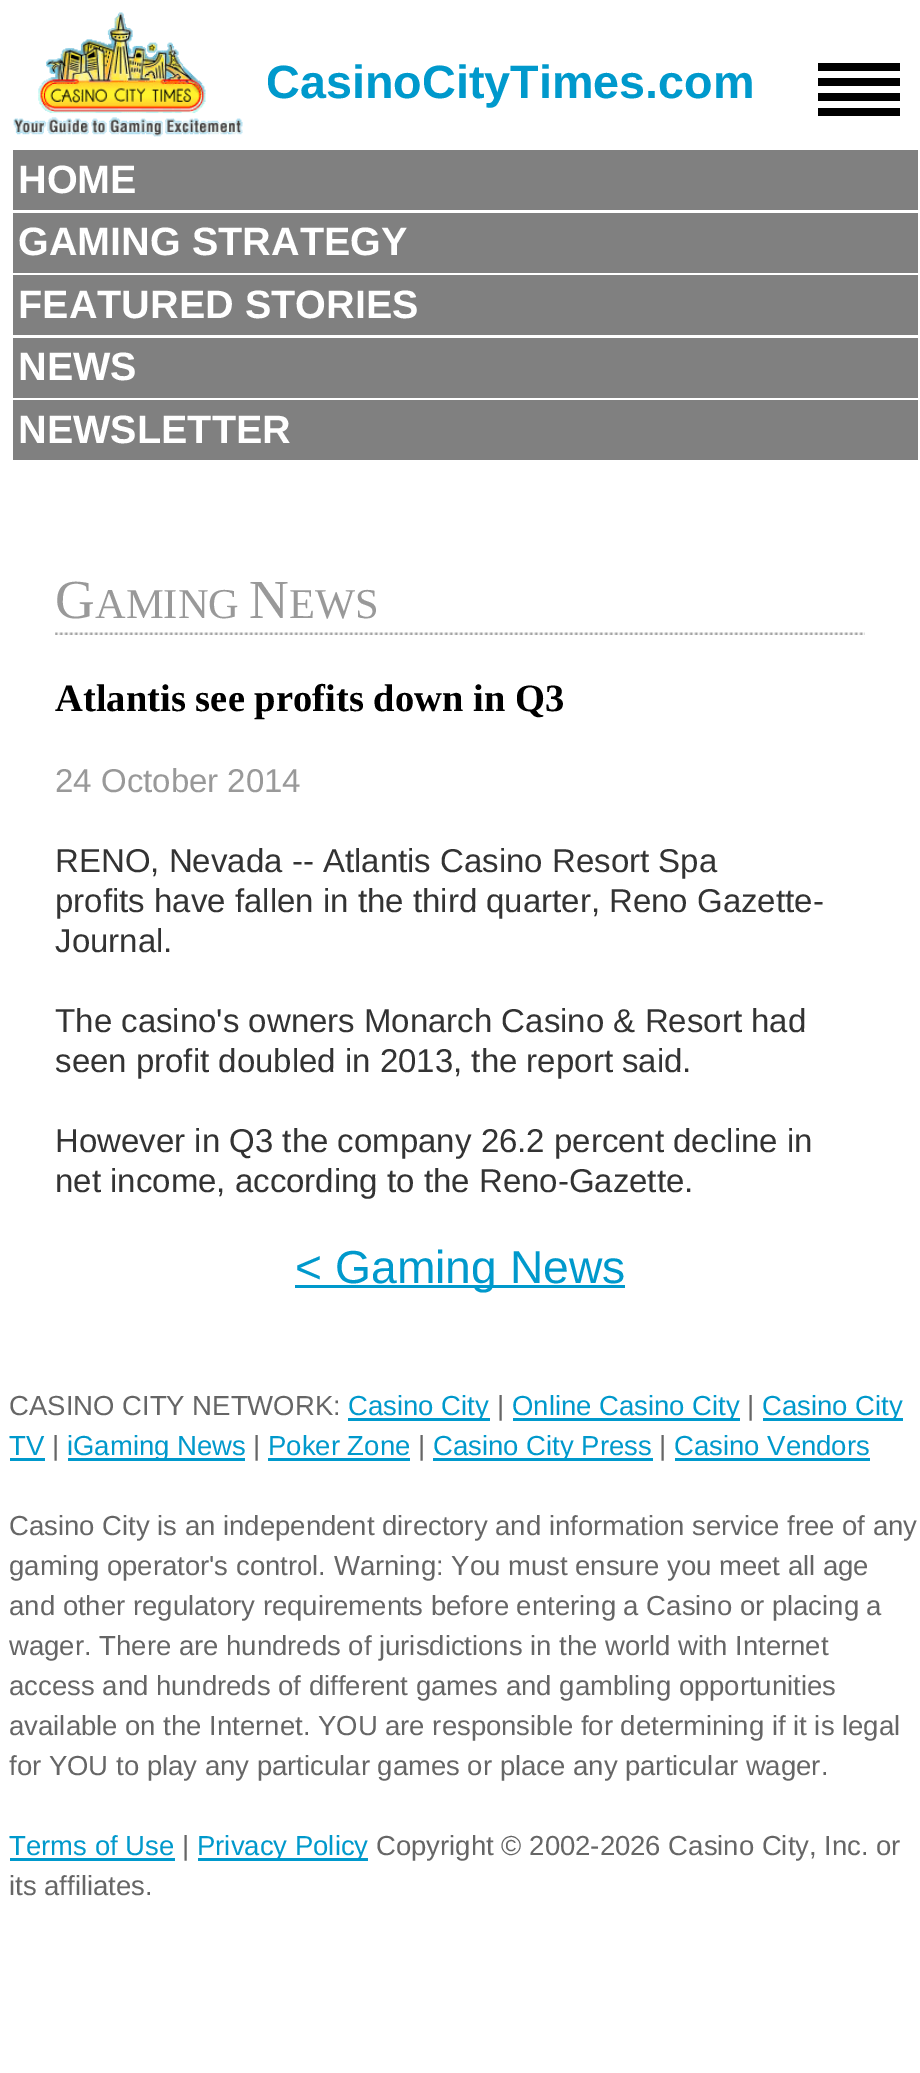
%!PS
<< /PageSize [920 2073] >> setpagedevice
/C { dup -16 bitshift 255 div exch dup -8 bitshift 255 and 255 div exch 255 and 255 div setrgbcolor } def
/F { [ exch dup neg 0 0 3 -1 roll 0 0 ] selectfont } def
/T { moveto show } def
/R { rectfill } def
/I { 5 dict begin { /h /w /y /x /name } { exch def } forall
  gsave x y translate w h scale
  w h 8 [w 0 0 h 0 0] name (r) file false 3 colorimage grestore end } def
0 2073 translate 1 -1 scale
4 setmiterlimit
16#FFFFFF C
0 0 920 2073 R
(1.rgb) 13 12 230 125 I
/LiberationSans-Bold 46.75 F
16#0099CC C
(CasinoCityTimes.com) 266 98 T
16#000000 C
818 63 82 8 R
818 78 82 8 R
818 93 82 8 R
818 108 82 8 R
16#808080 C
13 150 905 60 R
/LiberationSans-Bold 39.6 F
16#FFFFFF C
(HOME) 18 193 T
16#808080 C
13 213 905 60 R
16#FFFFFF C
(GAMING STRATEGY) 18 255 T
16#808080 C
13 275 905 60 R
16#FFFFFF C
(FEATURED STORIES) 18 318 T
16#808080 C
13 338 905 60 R
16#FFFFFF C
(NEWS) 18 380 T
16#808080 C
13 400 905 60 R
16#FFFFFF C
(NEWSLETTER) 18 443 T
/LiberationSerif-Regular 55 F
16#999999 C
(G) 55 618 T
/LiberationSerif-Regular 42.5 F
(AMING) 95 618 T
/LiberationSerif-Regular 55 F
(N) 249 618 T
/LiberationSerif-Regular 42.5 F
(EWS) 289 618 T
(2.rgb) 55 632 810 3 I
/LiberationSerif-Bold 38.6 F
16#000000 C
(Atlantis see profits down in Q3) 55 711 T
/LiberationSans-Regular 33 F
16#999999 C
(24 October 2014) 55 792 T
16#333333 C
(RENO, Nevada -- Atlantis Casino Resort Spa) 55 872 T
(profits have fallen in the third quarter, Reno Gazette-) 55 912 T
(Journal.) 55 952 T
(The casino's owners Monarch Casino & Resort had) 55 1032 T
(seen profit doubled in 2013, the report said.) 55 1072 T
(However in Q3 the company 26.2 percent decline in) 55 1152 T
(net income, according to the Reno-Gazette.) 55 1192 T
16#0099CC C
295 1285 330 3 R
/LiberationSans-Regular 46.25 F
(< Gaming News) 295 1283 T
/LiberationSans-Regular 27.5 F
16#666666 C
(CASINO CITY NETWORK:) 9 1415 T
16#0099CC C
348 1418 142 3 R
(Casino City) 348 1415 T
16#666666 C
(|) 497 1415 T
16#0099CC C
513 1418 227 3 R
(Online Casino City) 512 1415 T
16#666666 C
(|) 747 1415 T
16#0099CC C
763 1418 140 3 R
(Casino City) 762 1415 T
(TV) 9 1455 T
10 1458 35 3 R
16#666666 C
(|) 52 1455 T
16#0099CC C
68 1458 177 3 R
(iGaming News) 67 1455 T
16#666666 C
(|) 253 1455 T
16#0099CC C
(Poker Zone) 268 1455 T
268 1458 142 3 R
16#666666 C
(|) 418 1455 T
16#0099CC C
433 1458 220 3 R
(Casino City Press) 433 1455 T
16#666666 C
(|) 659 1455 T
16#0099CC C
(Casino Vendors) 674 1455 T
675 1458 195 3 R
16#666666 C
(Casino City is an independent directory and information service free of any) 9 1535 T
(gaming operator's control. Warning: You must ensure you meet all age) 9 1575 T
(and other regulatory requirements before entering a Casino or placing a) 9 1615 T
(wager. There are hundreds of jurisdictions in the world with Internet) 9 1655 T
(access and hundreds of different games and gambling opportunities) 9 1695 T
(available on the Internet. YOU are responsible for determining if it is legal) 9 1735 T
(for YOU to play any particular games or place any particular wager.) 9 1775 T
16#0099CC C
(Terms of Use) 9 1855 T
10 1858 165 3 R
16#666666 C
(|) 182 1855 T
16#0099CC C
198 1858 170 3 R
(Privacy Policy) 197 1855 T
16#666666 C
(Copyright © 2002-2026 Casino City, Inc. or) 376 1855 T
(its affiliates.) 9 1895 T
showpage
